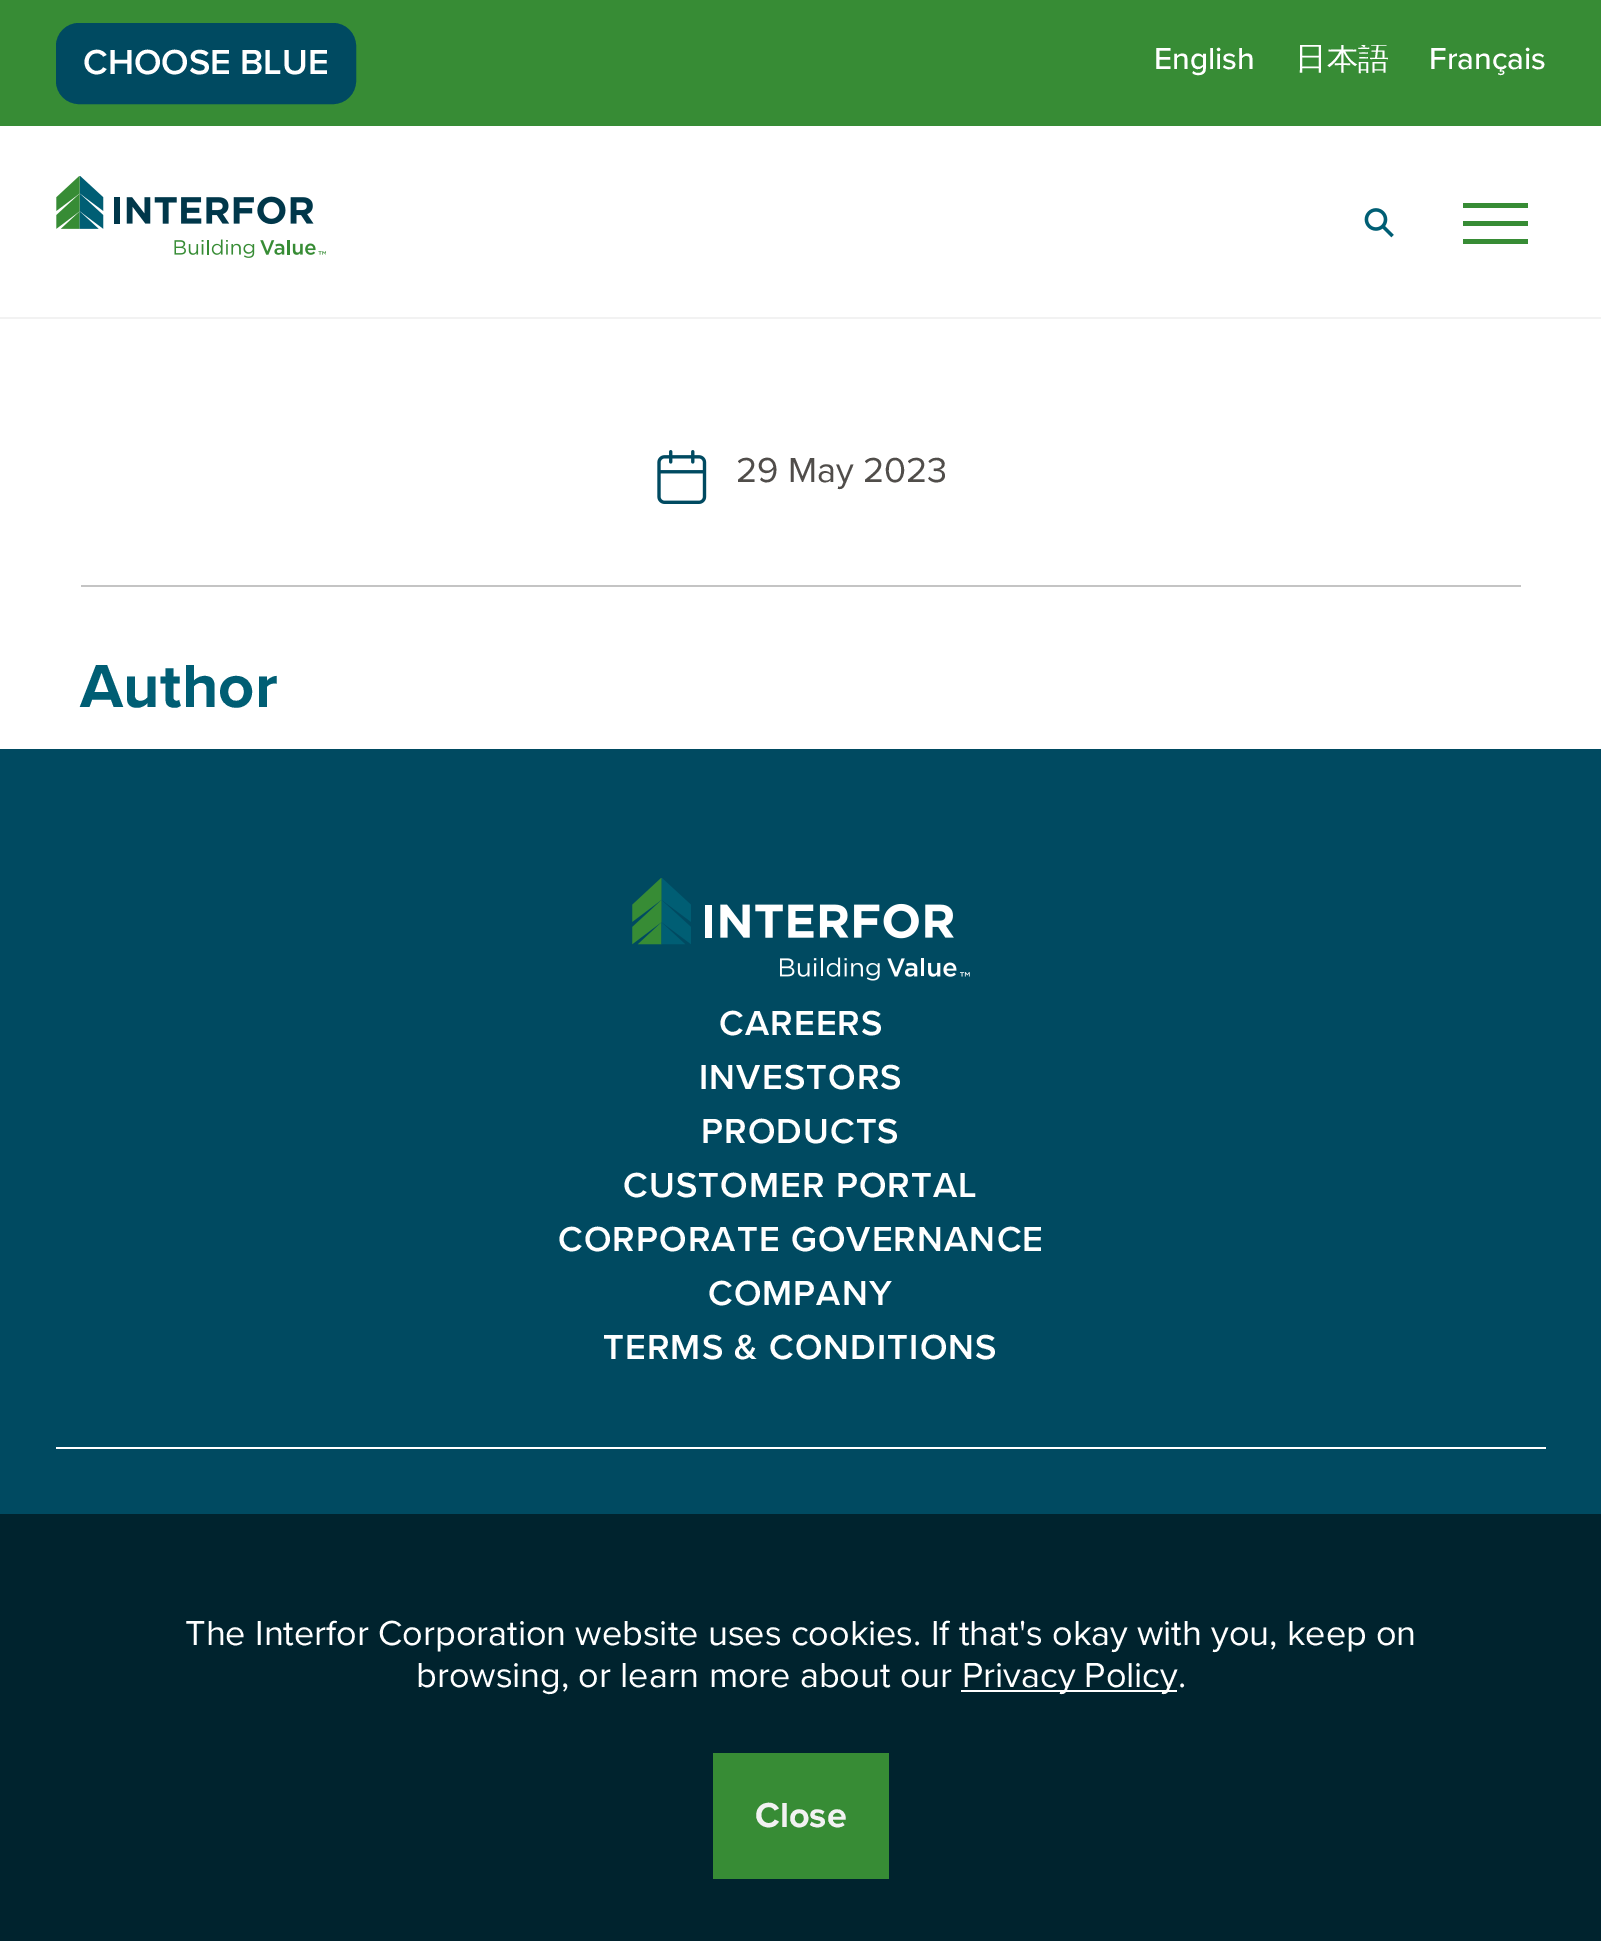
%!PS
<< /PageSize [1601 1941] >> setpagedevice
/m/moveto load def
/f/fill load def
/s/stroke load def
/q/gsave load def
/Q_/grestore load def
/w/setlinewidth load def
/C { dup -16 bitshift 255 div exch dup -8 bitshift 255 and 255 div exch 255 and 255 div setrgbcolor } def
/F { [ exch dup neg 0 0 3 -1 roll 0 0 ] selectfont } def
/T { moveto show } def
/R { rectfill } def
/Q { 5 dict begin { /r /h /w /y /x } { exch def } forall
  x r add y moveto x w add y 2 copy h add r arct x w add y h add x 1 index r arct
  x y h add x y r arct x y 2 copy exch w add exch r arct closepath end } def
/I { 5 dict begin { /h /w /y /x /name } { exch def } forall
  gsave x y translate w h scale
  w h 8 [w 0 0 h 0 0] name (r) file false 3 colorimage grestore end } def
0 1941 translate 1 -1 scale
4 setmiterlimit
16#FFFFFF C
0 0 1601 1941 R
16#F2F2F2 C
0 317 1601 2 R
16#378C35 C
0 0 1601 126 R
16#004A61 C
58.5 25.5 295 76 20.5 Q q f Q_
5 w
s
/ProximaNova-SemiBold 36 F
16#FFFFFF C
(CHOOSE BLUE) 83 74 T
/ProximaNova-Medium 31.5 F
(English) 1154 69 T
q
1294 45 94 32 rectclip
/WenQuanYiZenHei-Medium 31.5 F
(日本語) 1295 69 T
Q_
(Français) 1429 69 T
(1.rgb) 56 176 270 82 I
(2.rgb) 1364 208 30 30 I
16#378C35 C
1463 203 65 5 R
1463 221 65 5 R
1463 239 65 5 R
(3.rgb) 657 450 50 54 I
/ProximaNova-Regular 36 F
16#504D4A C
(29 May 2023) 736 482 T
16#C4C4C4 C
81 585 1440 2 R
/ProximaNova-Bold 63 F
16#005E74 C
80 707 m .25 0 (Author) ashow
16#004A61 C
0 749 1601 765 R
(4.rgb) 632 878 338 103 I
16#FFFFFF C
56 1447 1490 2 R
/ProximaNova-SemiBold 36 F
719 1035 m 1.1 0 (CAREERS) ashow
699 1089 m 1.1 0 (INVESTORS) ashow
701 1143 m 1.1 0 (PRODUCTS) ashow
623 1197 m 1.1 0 (CUSTOMER PORTAL) ashow
558 1251 m 1.1 0 (CORPORATE GOVERNANCE) ashow
708 1305 m 1.1 0 (COMPANY) ashow
603 1359 m 1.1 0 (TERMS & CONDITIONS) ashow
16#00232E C
0 1514 1601 427 R
/ProximaNova-Regular 36 F
16#FFFFFF C
(The Interfor Corporation website uses cookies. If that's okay with you, keep on) 185 1645 T
(browsing, or learn more about our) 416 1687 T
961 1690 216 2 R
(Privacy Policy.) 962 1687 T
16#378C35 C
713 1753 176 126 R
/ProximaNova-Bold 36 F
16#F2F2F2 C
(Close) 755 1827 T
showpage
